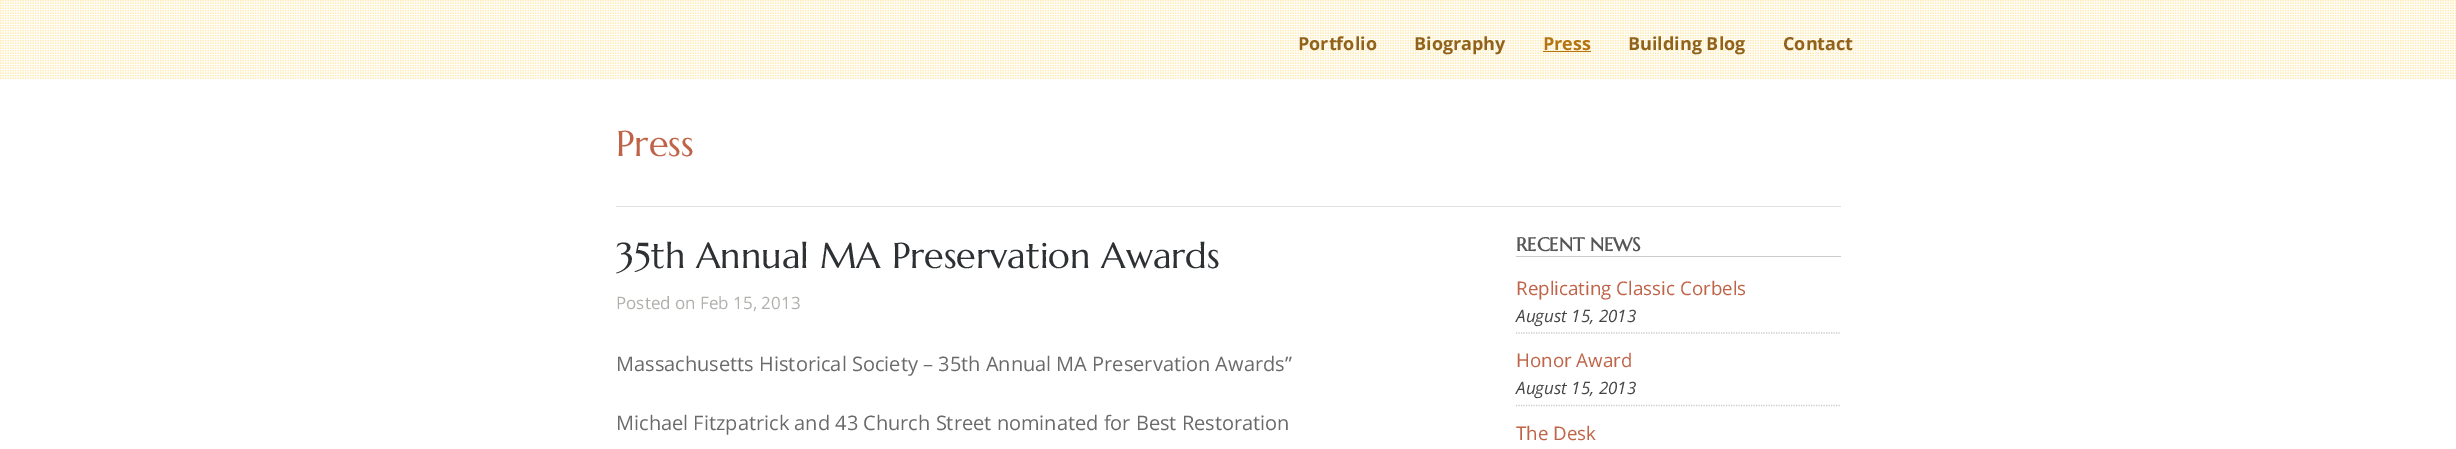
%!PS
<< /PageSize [2456 449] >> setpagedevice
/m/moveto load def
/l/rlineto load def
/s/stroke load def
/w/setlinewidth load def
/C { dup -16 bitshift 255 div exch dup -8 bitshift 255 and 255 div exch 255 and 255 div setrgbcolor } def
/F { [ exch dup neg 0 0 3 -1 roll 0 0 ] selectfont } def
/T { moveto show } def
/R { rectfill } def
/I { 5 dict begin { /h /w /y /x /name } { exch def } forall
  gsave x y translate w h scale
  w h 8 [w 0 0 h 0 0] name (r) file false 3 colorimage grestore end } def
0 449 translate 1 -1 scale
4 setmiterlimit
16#FFFFFF C
0 0 2456 449 R
(1.rgb) 0 0 2456 80 I
(2.rgb) 0 0 2456 80 I
/OpenSans-Bold 18 F
16#90621A C
(Portfolio) 1298 50 T
(Biography) 1414 50 T
16#B4740F C
(Press) 1543 50 T
1543 51 48 1 R
16#90621A C
(Building Blog) 1628 50 T
(Contact) 1783 50 T
16#DFDFDE C
616 206 1225 1 R
/Marcellus-Regular 36 F
16#BF6448 C
(Press) 616 156 T
16#2E3133 C
(35th Annual MA Preservation Awards) 616 268 T
/OpenSans-Regular 17 F
16#B0B0AD C
(Posted on Feb 15, 2013) 616 309 T
/OpenSans-Regular 20 F
16#6A6A6A C
(Massachusetts Historical Society – 35th Annual MA Preservation Awards”) 616 371 T
(Michael Fitzpatrick and 43 Church Street nominated for Best Restoration) 616 430 T
16#CCCCCC C
1516 256 325 1 R
/Marcellus-Bold 19 F
16#565656 C
(RECENT NEWS) 1516 251 T
16#CCCCCC C
1.2 w
[1.25 1.25] 0 setdash
1516 333 m 325 0 l s
/OpenSans-Regular 18.75 F
16#BF6448 C
(Replicating Classic Corbels) 1516 295 T
/OpenSans-Italic 17 F
16#444443 C
(August 15, 2013) 1516 322 T
16#CCCCCC C
1516 405.5 m 325 0 l s
/OpenSans-Regular 18.75 F
16#BF6448 C
(Honor Award) 1516 367 T
/OpenSans-Italic 17 F
16#444443 C
(August 15, 2013) 1516 394 T
/OpenSans-Regular 18.75 F
16#BF6448 C
(The Desk) 1516 440 T
showpage
